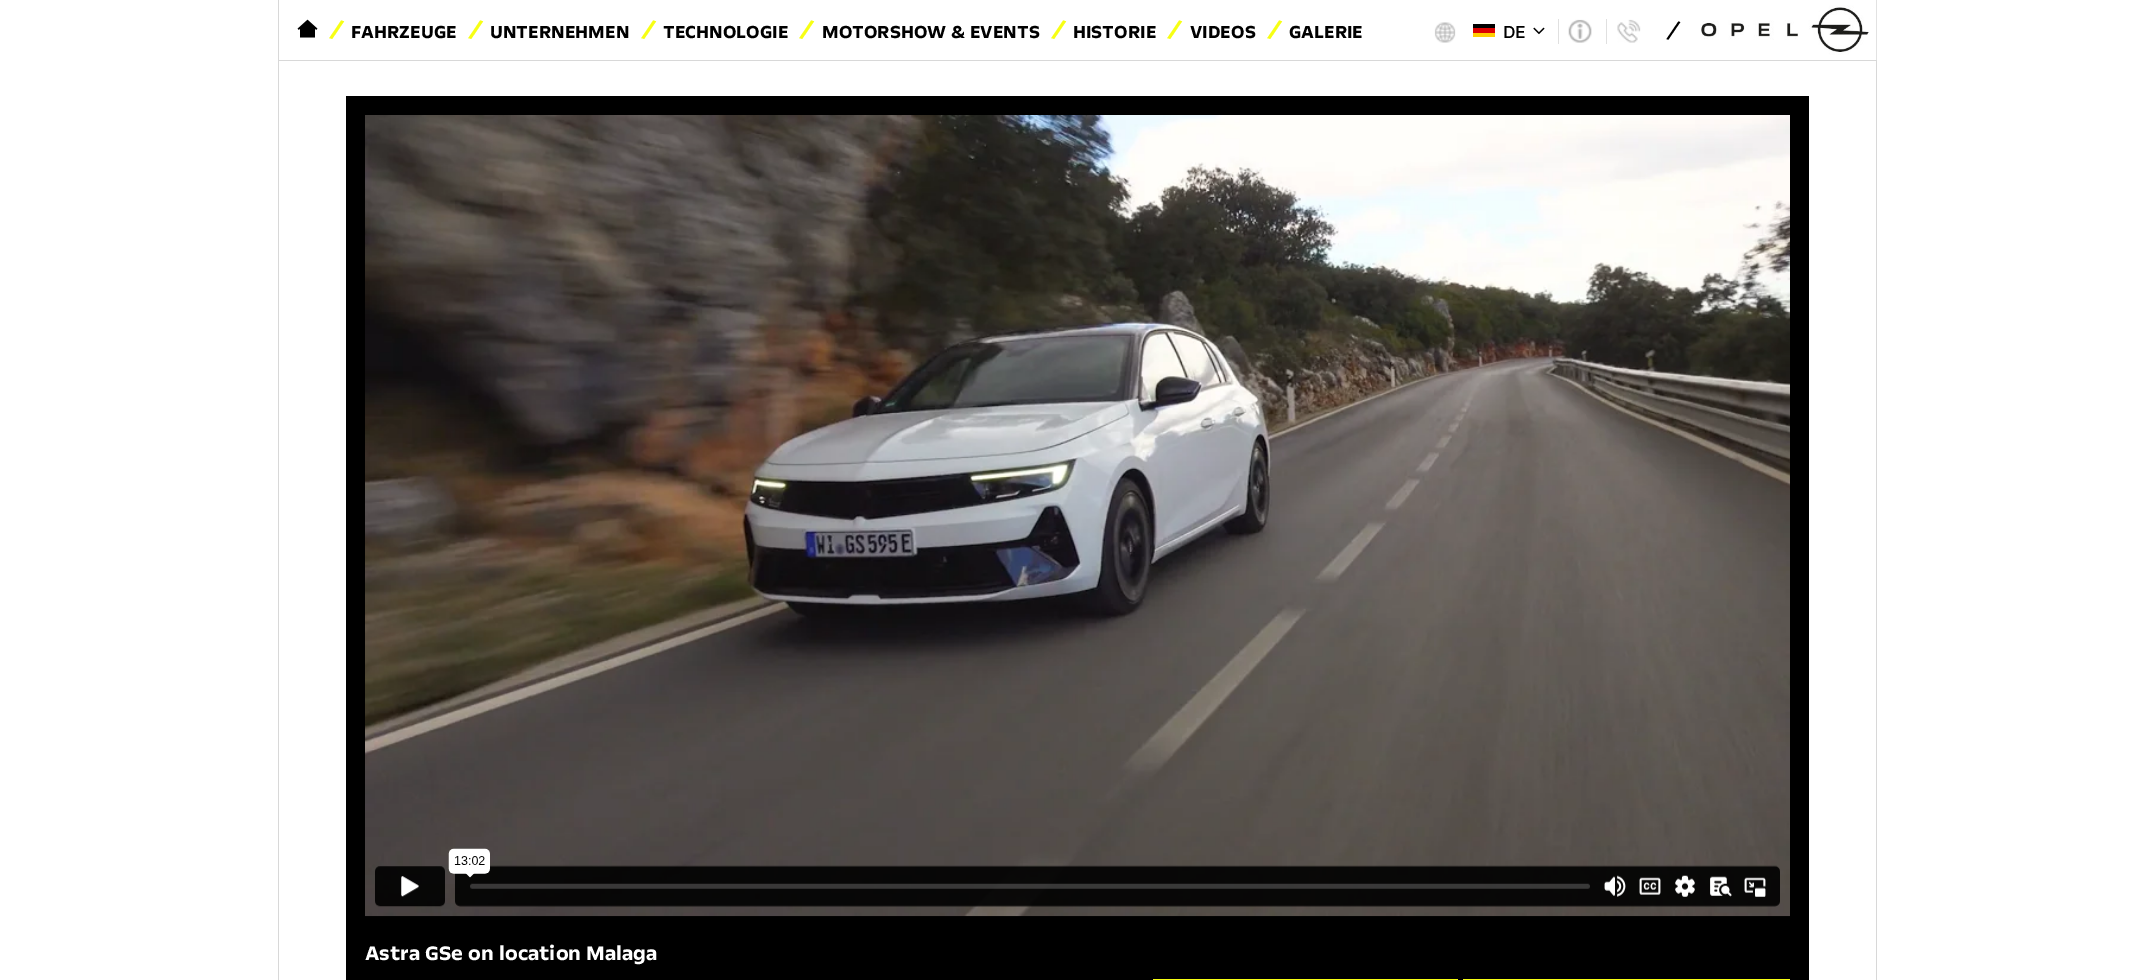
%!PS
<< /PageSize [2154 980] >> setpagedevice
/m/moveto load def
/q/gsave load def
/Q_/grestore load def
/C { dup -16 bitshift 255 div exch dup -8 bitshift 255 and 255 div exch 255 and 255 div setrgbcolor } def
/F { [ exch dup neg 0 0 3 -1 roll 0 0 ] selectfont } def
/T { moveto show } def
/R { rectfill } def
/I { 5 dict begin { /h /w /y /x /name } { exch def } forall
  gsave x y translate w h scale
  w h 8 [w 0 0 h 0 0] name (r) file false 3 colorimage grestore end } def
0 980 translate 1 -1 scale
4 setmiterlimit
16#FFFFFF C
0 0 2154 980 R
16#D8D8D8 C
1876 0 1 980 R
278 0 1 980 R
279 60 1597 1 R
(1.rgb) 297 19 21 19 I
/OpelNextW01-Bold 28 F
16#F7FF14 C
q 330 36 translate 18 rotate 0 0 m (/) show Q_
/OpelNextW01-Bold 20 F
16#000000 C
(FAHRZEUGE) 351 38 T
/OpelNextW01-Bold 28 F
16#F7FF14 C
q 469 36 translate 18 rotate 0 0 m (/) show Q_
/OpelNextW01-Bold 20 F
16#000000 C
(UNTERNEHMEN) 490 38 T
/OpelNextW01-Bold 28 F
16#F7FF14 C
q 642 36 translate 18 rotate 0 0 m (/) show Q_
/OpelNextW01-Bold 20 F
16#000000 C
(TECHNOLOGIE) 663 38 T
/OpelNextW01-Bold 28 F
16#F7FF14 C
q 800 36 translate 18 rotate 0 0 m (/) show Q_
/OpelNextW01-Bold 20 F
16#000000 C
(MOTORSHOW & EVENTS) 822 38 T
/OpelNextW01-Bold 28 F
16#F7FF14 C
q 1052 36 translate 18 rotate 0 0 m (/) show Q_
/OpelNextW01-Bold 20 F
16#000000 C
(HISTORIE) 1073 38 T
/OpelNextW01-Bold 28 F
16#F7FF14 C
q 1168 36 translate 18 rotate 0 0 m (/) show Q_
/OpelNextW01-Bold 20 F
16#000000 C
(VIDEOS) 1190 38 T
/OpelNextW01-Bold 28 F
16#F7FF14 C
q 1268 36 translate 18 rotate 0 0 m (/) show Q_
/OpelNextW01-Bold 20 F
16#000000 C
(GALERIE) 1289 38 T
(2.rgb) 1434 22 22 21 I
/OpelNextW01-Regular 20 F
(DE) 1503 38 T
1473 24 22 4 R
16#DD0000 C
1473 28 22 5 R
16#FFCE00 C
1473 33 22 4 R
(3.rgb) 1533 27 12 8 I
(4.rgb) 1568 19 24 24 I
16#E0E0E0 C
1558 19 1 25 R
(5.rgb) 1617 19 24 24 I
1606 19 1 25 R
/OpelNextW01-Regular 28 F
16#000000 C
q 1667 37 translate 18 rotate 0 0 m (/) show Q_
(6.rgb) 1700 0 177 60 I
346 96 1463 884 R
(7.rgb) 365 115 1425 802 I
/OpelNextW01-Bold 22.5 F
16#FFFFFF C
(Astra GSe on location Malaga) 365 960 T
16#F7FF14 C
1153 979 305 1 R
1463 979 327 1 R
showpage
